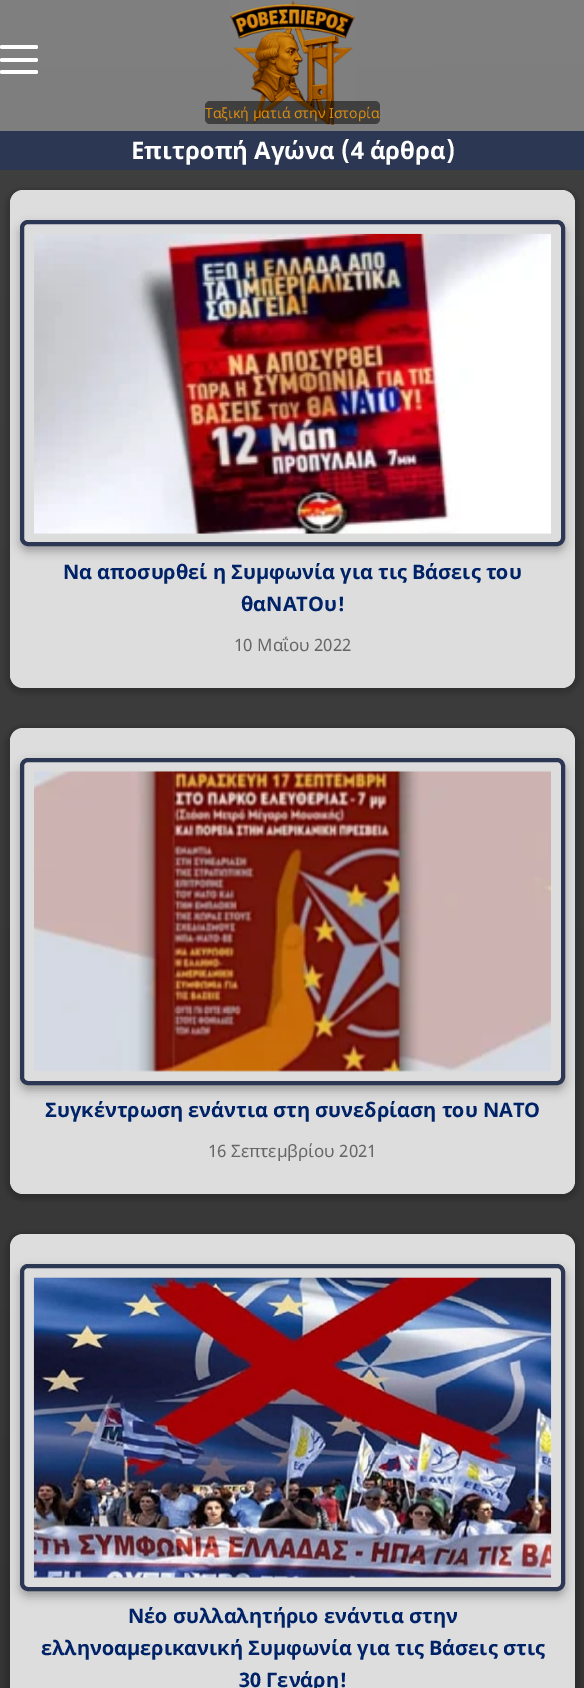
%!PS
<< /PageSize [584 1688] /PageUsesTransparency true >> setpagedevice
/m/moveto load def
/l/rlineto load def
/c/rcurveto load def
/z/closepath load def
/f/fill load def
/s/stroke load def
/q/gsave load def
/Q_/grestore load def
/w/setlinewidth load def
/C { dup -16 bitshift 255 div exch dup -8 bitshift 255 and 255 div exch 255 and 255 div setrgbcolor } def
/F { [ exch dup neg 0 0 3 -1 roll 0 0 ] selectfont } def
/T { moveto show } def
/R { rectfill } def
/A { dup .setfillconstantalpha .setstrokeconstantalpha } def
/Q { 5 dict begin { /r /h /w /y /x } { exch def } forall
  x r add y moveto x w add y 2 copy h add r arct x w add y h add x 1 index r arct
  x y h add x y r arct x y 2 copy exch w add exch r arct closepath end } def
/S { 12 dict begin { /a /b /q /h /w /y /x } { exch def } forall gsave /was 0 def
  9 -2 -9 { dup b mul 4 div /e exch def 1 sub .425 mul 2.718 exch exp 1 add a .99 .min exch div /now exch def
    1 1 now sub 1 was sub div sub A /was now def
    w h .min e 2 mul add 0 gt { x e sub y e sub w e 2 mul add h e 2 mul add
      q e add b .6 mul add w h .min 2 div e add .min 0 .max Q fill } if } for grestore end } def
/I { 5 dict begin { /h /w /y /x /name } { exch def } forall
  gsave x y translate w h scale
  w h 8 [w 0 0 h 0 0] name (r) file false 3 colorimage grestore end } def
0 .pushpdf14devicefilter
0 1688 translate 1 -1 scale
4 setmiterlimit
16#FFFFFF C
0 0 584 1688 R
q 0 0 m 584 0 l 0 131 l -584 0 l z clip newpath
<< /ShadingType 2 /ColorSpace /DeviceRGB /Coords [292 0 293 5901] /Extend [true true] /Function << /FunctionType 2 /Domain [0 1] /C0 [.502 .502 .502] /C1 [.2 .2 .2] /N 1 >> >> shfill Q_
q 0 170 m 584 0 l 0 1518 l -584 0 l z clip newpath
<< /ShadingType 2 /ColorSpace /DeviceRGB /Coords [292 0 293 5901] /Extend [true true] /Function << /FunctionType 2 /Domain [0 1] /C0 [.251 .251 .251] /C1 [.102 .102 .102] /N 1 >> >> shfill Q_
0 45 38 4 2 Q f
0 58 38 4 2 Q f
0 70 38 4 2 Q f
(1.rgb) 230 0 125 125 I
0.5 A
16#000000 C
205 101 175 23 5 Q f
/NotoSans-Regular 14 F
1 A
16#D68B12 C
(Ταξική ματιά στην Ιστορία) 205 118 T
16#2C3753 C
0 131 584 39 R
/NotoSans-Bold 24 F
16#FFFFFF C
(Επιτροπή Αγώνα \(4 άρθρα\)) 131 159 T
16#000000 C
6 189 573 505 16 3 .2 S
16#DDDDDD C
10 190 565 498 13 Q f
q
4 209 m 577 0 l 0 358 l -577 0 l z 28 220 m 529 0 l 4.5 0 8 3.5 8 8 c 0 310 l 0 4.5 -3.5 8 -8 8 c -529 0 l -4.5 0 -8 -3.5 -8 -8 c 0 -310 l 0 -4.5 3.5 -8 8 -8 c z eoclip newpath
16#000000 C
20 225 545 326 8 5 .3 S
Q_
16#2C3753 C
4 w
22 222 541 322 6 Q s
(2.rgb) 34 233 517 301 I
/NotoSans-Bold 20 F
16#002266 C
(Να αποσυρθεί η Συμφωνία για τις Βάσεις του) 63 579 T
(θαΝΑΤΟυ!) 241 611 T
/NotoSans-Regular 17 F
16#666666 C
(10 Μαΐου 2022) 234 651 T
16#000000 C
6 726 573 474 16 3 .2 S
16#DDDDDD C
10 728 565 466 13 Q f
q
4 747 m 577 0 l 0 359 l -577 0 l z 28 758 m 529 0 l 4.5 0 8 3.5 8 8 c 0 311 l 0 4.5 -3.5 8 -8 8 c -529 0 l -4.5 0 -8 -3.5 -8 -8 c 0 -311 l 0 -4.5 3.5 -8 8 -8 c z eoclip newpath
16#000000 C
20 763 545 327 8 5 .3 S
Q_
16#2C3753 C
22 760 541 323 6 Q s
(3.rgb) 34 770 517 302 I
/NotoSans-Bold 20 F
16#002266 C
(Συγκέντρωση ενάντια στη συνεδρίαση του ΝΑΤΟ) 45 1117 T
/NotoSans-Regular 17 F
16#666666 C
(16 Σεπτεμβρίου 2021) 208 1157 T
16#000000 C
6 1233 573 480 16 3 .2 S
16#DDDDDD C
10 1234 565 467 13 Q f
q
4 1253 m 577 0 l 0 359 l -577 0 l z 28 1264 m 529 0 l 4.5 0 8 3.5 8 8 c 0 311 l 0 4.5 -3.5 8 -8 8 c -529 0 l -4.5 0 -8 -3.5 -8 -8 c 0 -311 l 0 -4.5 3.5 -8 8 -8 c z eoclip newpath
16#000000 C
20 1269 545 327 8 5 .3 S
Q_
16#2C3753 C
22 1266 541 323 6 Q s
(4.rgb) 33 1277 519 301 I
/NotoSans-Bold 20 F
16#002266 C
(Νέο συλλαλητήριο ενάντια στην) 128 1623 T
(ελληνοαμερικανική Συμφωνία για τις Βάσεις στις) 41 1655 T
(30 Γενάρη!) 239 1687 T
.poppdf14devicefilter showpage
